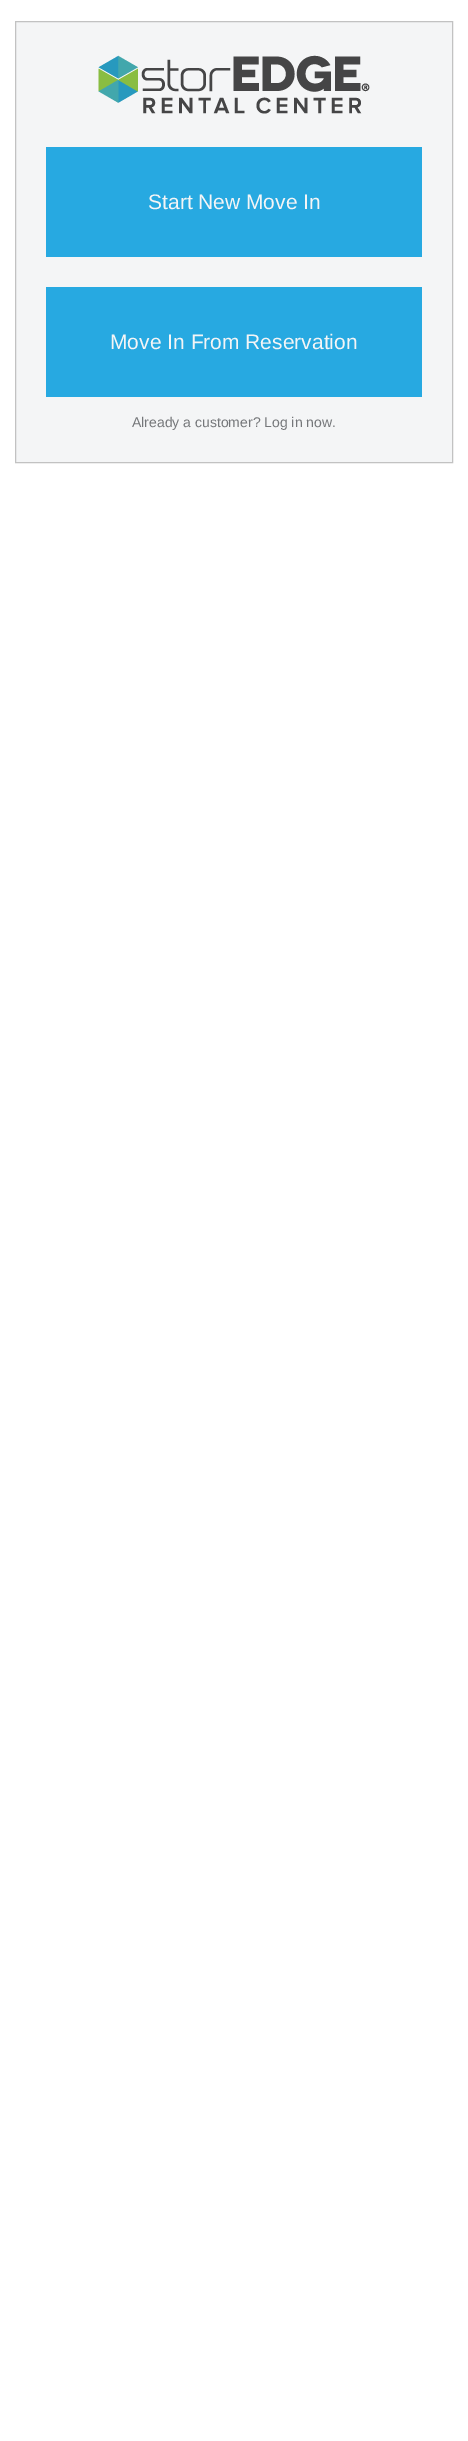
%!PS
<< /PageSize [468 2441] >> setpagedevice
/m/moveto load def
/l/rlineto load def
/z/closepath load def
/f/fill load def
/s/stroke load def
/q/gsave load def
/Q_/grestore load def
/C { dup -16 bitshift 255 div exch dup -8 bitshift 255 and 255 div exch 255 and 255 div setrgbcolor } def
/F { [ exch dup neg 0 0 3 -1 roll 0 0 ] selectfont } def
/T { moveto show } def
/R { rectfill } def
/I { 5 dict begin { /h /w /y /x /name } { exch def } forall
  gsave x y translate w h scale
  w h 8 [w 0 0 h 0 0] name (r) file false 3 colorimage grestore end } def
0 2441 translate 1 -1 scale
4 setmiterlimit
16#FFFFFF C
0 0 468 2441 R
16#F4F5F6 C
15.5 21.5 m 437 0 l 0 441 l -437 0 l z q f Q_
16#C2C2C2 C
s
(1.rgb) 98 55 272 59 I
16#27A9E1 C
46 147 376 110 R
/LiberationSans-Regular 21 F
16#F4F5F6 C
(Start New Move In) 148 209 T
16#27A9E1 C
46 287 376 110 R
16#F4F5F6 C
(Move In From Reservation) 110 349 T
/LiberationSans-Regular 14 F
16#75777A C
(Already a customer? Log in now.) 132 427 T
showpage
